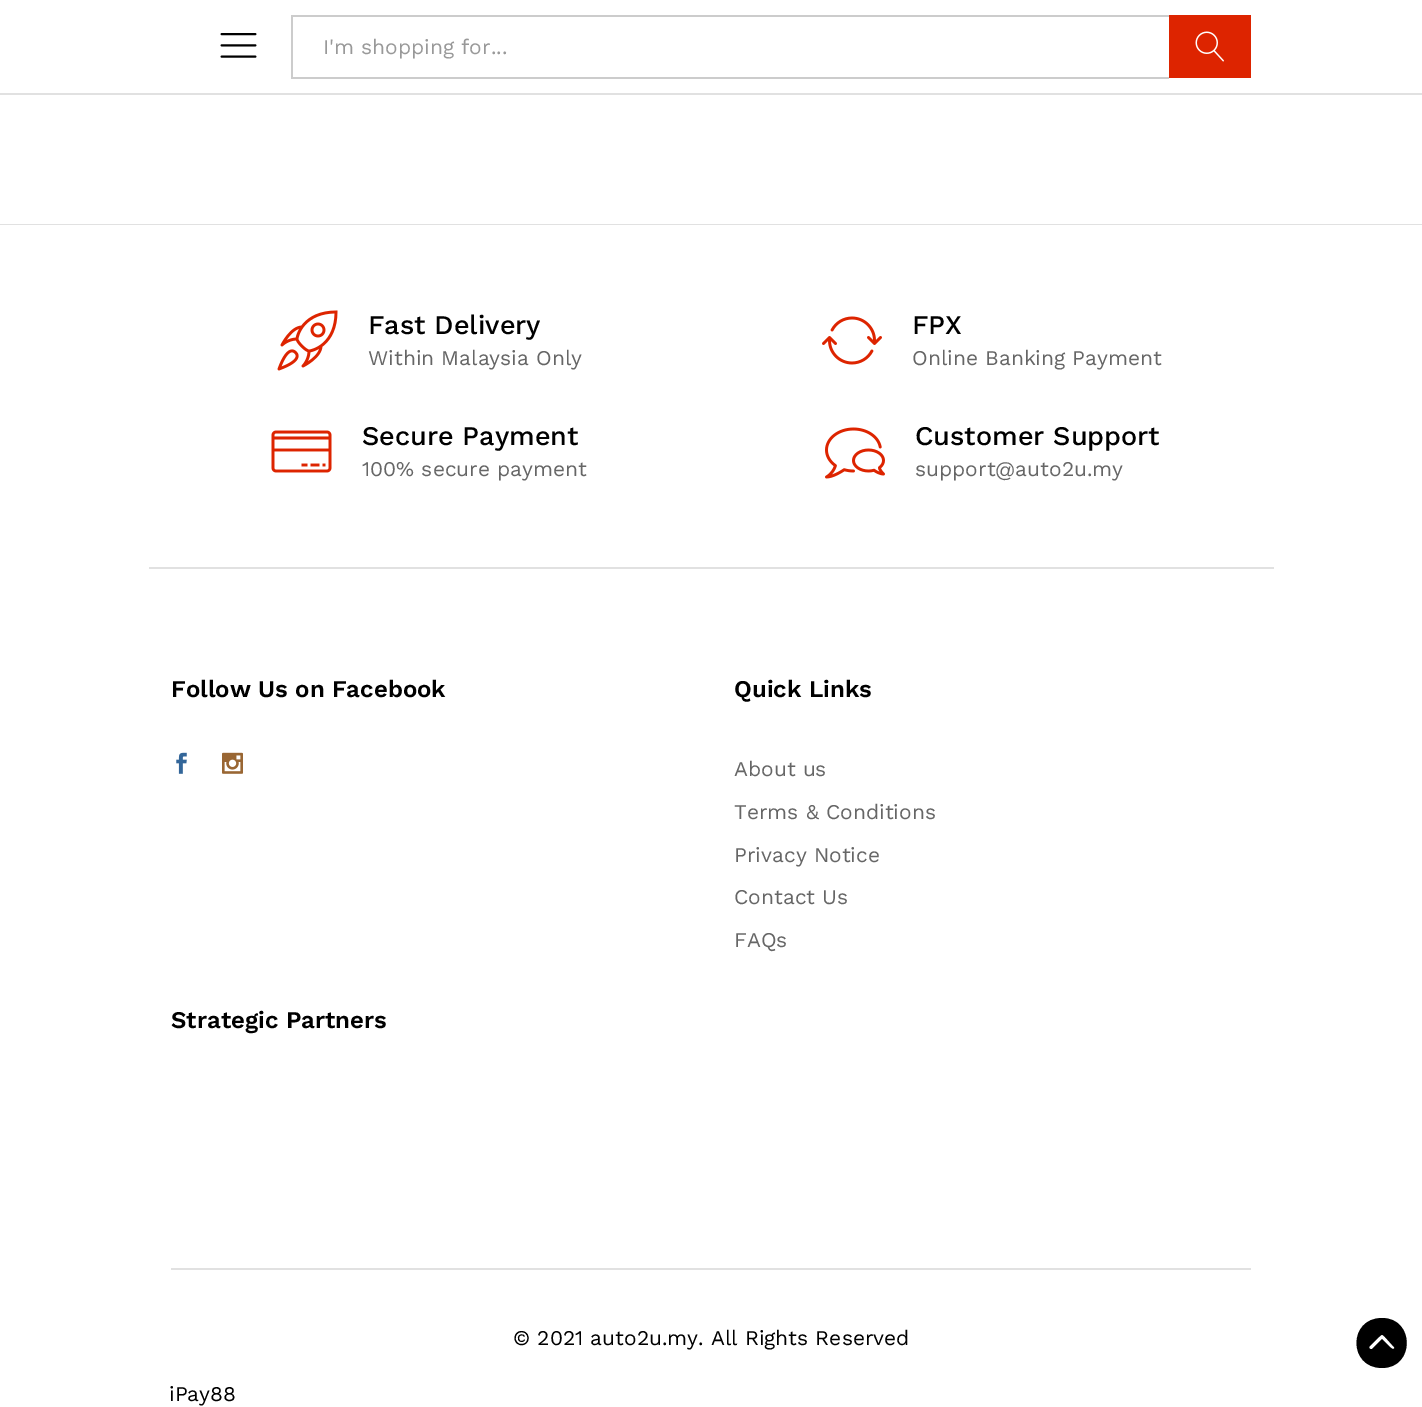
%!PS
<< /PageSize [1422 1407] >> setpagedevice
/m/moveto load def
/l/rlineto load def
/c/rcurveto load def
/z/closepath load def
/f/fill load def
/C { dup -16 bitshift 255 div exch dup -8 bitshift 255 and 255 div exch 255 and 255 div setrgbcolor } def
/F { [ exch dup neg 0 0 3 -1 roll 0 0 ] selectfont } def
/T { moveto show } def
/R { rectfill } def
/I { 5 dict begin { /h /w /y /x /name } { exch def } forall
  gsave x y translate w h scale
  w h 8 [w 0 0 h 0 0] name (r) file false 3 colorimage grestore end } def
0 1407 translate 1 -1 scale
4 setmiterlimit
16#FFFFFF C
0 0 1422 1407 R
16#E1E1E1 C
0 93 1422 2 R
(1.rgb) 220 33 37 25 I
16#CCCCCC C
291 15 878 2 R
291 77 878 2 R
291 15 2 63 R
/WorkSans-Regular 21 F
16#999999 C
(I'm shopping for...) 323 54 T
16#DD2400 C
1169 15 82 63 R
(2.rgb) 1195 31 29 31 I
16#E1E1E1 C
0 224 1422 1 R
149 567 1125 2 R
(3.rgb) 277 310 61 61 I
/WorkSans-Medium 27 F
16#000000 C
(Fast Delivery) 368 334 T
/WorkSans-Regular 21 F
16#666666 C
(Within Malaysia Only) 368 365 T
(4.rgb) 822 316 60 49 I
/WorkSans-Medium 27 F
16#000000 C
(FPX) 912 334 T
/WorkSans-Regular 21 F
16#666666 C
(Online Banking Payment) 912 365 T
(5.rgb) 271 430 61 43 I
/WorkSans-Medium 27 F
16#000000 C
(Secure Payment) 362 445 T
/WorkSans-Regular 21 F
16#666666 C
(100% secure payment) 362 476 T
(6.rgb) 825 427 60 52 I
/WorkSans-Medium 27 F
16#000000 C
(Customer Support) 915 445 T
/WorkSans-Regular 21 F
16#666666 C
(support@auto2u.my) 915 476 T
/WorkSans-SemiBold 24 F
16#000000 C
(Follow Us on Facebook) 171 697 T
(7.rgb) 176 752 11 22 I
(8.rgb) 222 752 21 22 I
(Quick Links) 734 697 T
/WorkSans-Regular 21 F
16#666666 C
(About us) 734 776 T
(Terms & Conditions) 734 819 T
(Privacy Notice) 734 862 T
(Contact Us) 734 904 T
(FAQs) 734 947 T
/WorkSans-SemiBold 24 F
16#000000 C
(Strategic Partners) 171 1028 T
16#E1E1E1 C
171 1268 1080 2 R
/WorkSans-Regular 21 F
16#000000 C
(© 2021 auto2u.my. All Rights Reserved) 513 1345 T
(iPay88) 169 1401 T
1382 1368 m -34 0 -34 -50 0 -50 c 33 0 33 50 0 50 c z 1370 1346 m -2 1 0 4 2 3 c 10 -10 l 1 1 9 10 11 10 c 1 0 2 -1 1 -2 c -9 -10 l -3 -3 -3 -3 -6 0 c z f
showpage
